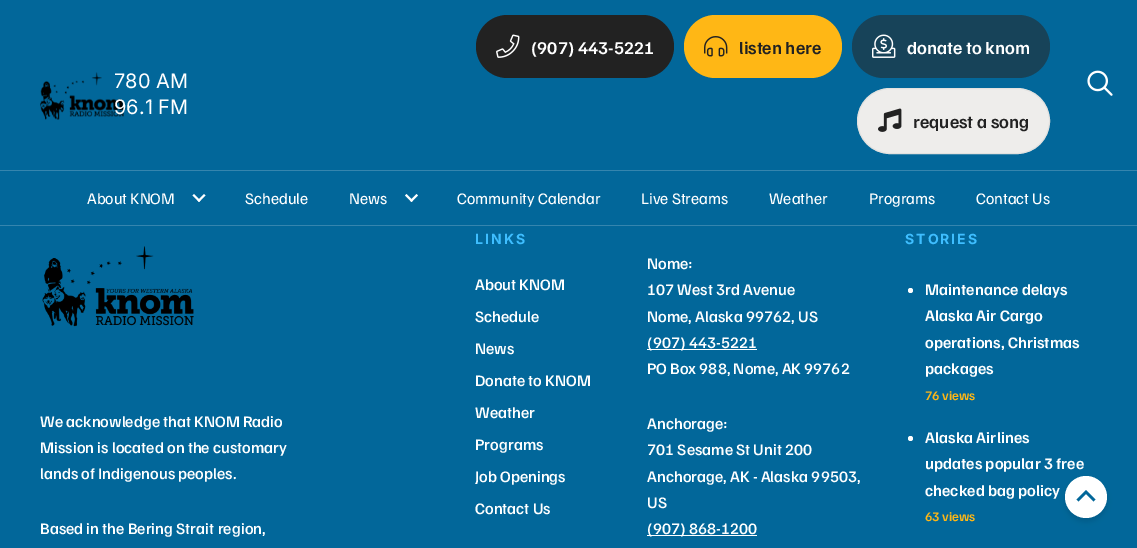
%!PS
<< /PageSize [1137 548] /PageUsesTransparency true >> setpagedevice
/m/moveto load def
/l/rlineto load def
/z/closepath load def
/f/fill load def
/s/stroke load def
/q/gsave load def
/Q_/grestore load def
/C { dup -16 bitshift 255 div exch dup -8 bitshift 255 and 255 div exch 255 and 255 div setrgbcolor } def
/F { [ exch dup neg 0 0 3 -1 roll 0 0 ] selectfont } def
/T { moveto show } def
/R { rectfill } def
/A { dup .setfillconstantalpha .setstrokeconstantalpha } def
/O { newpath 0 360 arc closepath } def
/Q { 5 dict begin { /r /h /w /y /x } { exch def } forall
  x r add y moveto x w add y 2 copy h add r arct x w add y h add x 1 index r arct
  x y h add x y r arct x y 2 copy exch w add exch r arct closepath end } def
/S { 12 dict begin { /a /b /q /h /w /y /x } { exch def } forall gsave /was 0 def
  9 -2 -9 { dup b mul 4 div /e exch def 1 sub .425 mul 2.718 exch exp 1 add a .99 .min exch div /now exch def
    1 1 now sub 1 was sub div sub A /was now def
    w h .min e 2 mul add 0 gt { x e sub y e sub w e 2 mul add h e 2 mul add
      q e add b .6 mul add w h .min 2 div e add .min 0 .max Q fill } if } for grestore end } def
/I { 5 dict begin { /h /w /y /x /name } { exch def } forall
  gsave x y translate w h scale
  w h 8 [w 0 0 h 0 0] name (r) file false 3 colorimage grestore end } def
0 .pushpdf14devicefilter
0 548 translate 1 -1 scale
4 setmiterlimit
16#02679A C
0 0 1137 548 R
(1.rgb) 40 72 84 48 I
/Inter-Regular 20 F
16#FFFFFF C
(780 AM) 114 88 T
(96.1 FM) 114 114 T
16#222222 C
476 15 198 63 31.5 Q f
(2.rgb) 496 34 24 24 I
/FamiljenGrotesk-SemiBold 18 F
16#FFFFFF C
(\(907\) 443-5221) 531 54 T
16#FFB715 C
684 15 158 63 31.5 Q f
(3.rgb) 704 36 24 21 I
16#222222 C
(listen here) 739 54 T
16#174359 C
852 15 198 63 31.5 Q f
(4.rgb) 872 34 24 24 I
16#FFFFFF C
(donate to knom) 907 54 T
16#EEEDEB C
857.5 88.5 192 65 32.5 Q q f Q_
16#E2E1DF C
s
(5.rgb) 878 108 24 24 I
16#222222 C
(request a song) 913 128 T
(6.rgb) 1087 70 26 26 I
16#3585AE C
0 170 1137 1 R
0 225 1137 1 R
/FamiljenGrotesk-Regular 16 F
16#FFFFFF C
(About KNOM) 87 204 T
204 194 m 1.5 1.5 l -6.5 6.5 l -1.5 -1.5 l z f
194 194 m 6.5 6.5 l -1.5 1.5 l -6.5 -6.5 l z f
(Schedule) 245 204 T
(News) 349 204 T
416.5 194 m 1.5 1.5 l -6.5 6.5 l -1.5 -1.5 l z f
406.5 194 m 6.5 6.5 l -1.5 1.5 l -6.5 -6.5 l z f
(Community Calendar) 457 204 T
(Live Streams) 641 204 T
(Weather) 769 204 T
(Programs) 869 204 T
(Contact Us) 976 204 T
(7.rgb) 42 246 152 81 I
/FamiljenGrotesk-Medium 16 F
(We acknowledge that KNOM Radio) 40 427 T
(Mission is located on the customary) 40 453 T
(lands of Indigenous peoples.) 40 479 T
(Based in the Bering Strait region,) 40 534 T
/Inter-Bold 14 F
16#3EBEFF C
475 244 m 2 0 (LINKS) ashow
/FamiljenGrotesk-Medium 16 F
16#FFFFFF C
(About KNOM) 475 290 T
(Schedule) 475 322 T
(News) 475 354 T
(Donate to KNOM) 475 386 T
(Weather) 475 418 T
(Programs) 475 450 T
(Job Openings) 475 482 T
(Contact Us) 475 514 T
(Nome:) 647 269 T
(107 West 3rd Avenue) 647 295 T
(Nome, Alaska 99762, US) 647 322 T
647 349 110 1 R
(\(907\) 443-5221) 647 348 T
(PO Box 988, Nome, AK 99762) 647 374 T
(Anchorage:) 647 429 T
(701 Sesame St Unit 200) 647 455 T
(Anchorage, AK - Alaska 99503,) 647 482 T
(US) 647 508 T
647 535 110 1 R
(\(907\) 868-1200) 647 534 T
/Inter-Bold 14 F
16#3EBEFF C
905 244 m 2 0 (STORIES) ashow
16#FFFFFF C
910.5 290.5 2.5 O f
/FamiljenGrotesk-SemiBold 16 F
(Maintenance delays) 925 295 T
(Alaska Air Cargo) 925 321 T
(operations, Christmas) 925 348 T
(packages) 925 374 T
/FamiljenGrotesk-SemiBold 13 F
16#FFB715 C
(76 views) 925 400 T
16#FFFFFF C
910.5 438.5 2.5 O f
/FamiljenGrotesk-SemiBold 16 F
(Alaska Airlines) 925 443 T
(updates popular 3 free) 925 469 T
(checked bag policy) 925 496 T
/FamiljenGrotesk-SemiBold 13 F
16#FFB715 C
(63 views) 925 521 T
16#000000 C
1065 480 42 42 21 2.5 .1 S
16#FFFFFF C
1086 497 21 O f
16#02679A C
1095.5 499.5 m -9.5 -9.5 l -9.5 9.5 l 2 2 l 7.5 -7.5 l 7.5 7.5 l z f
.poppdf14devicefilter showpage
